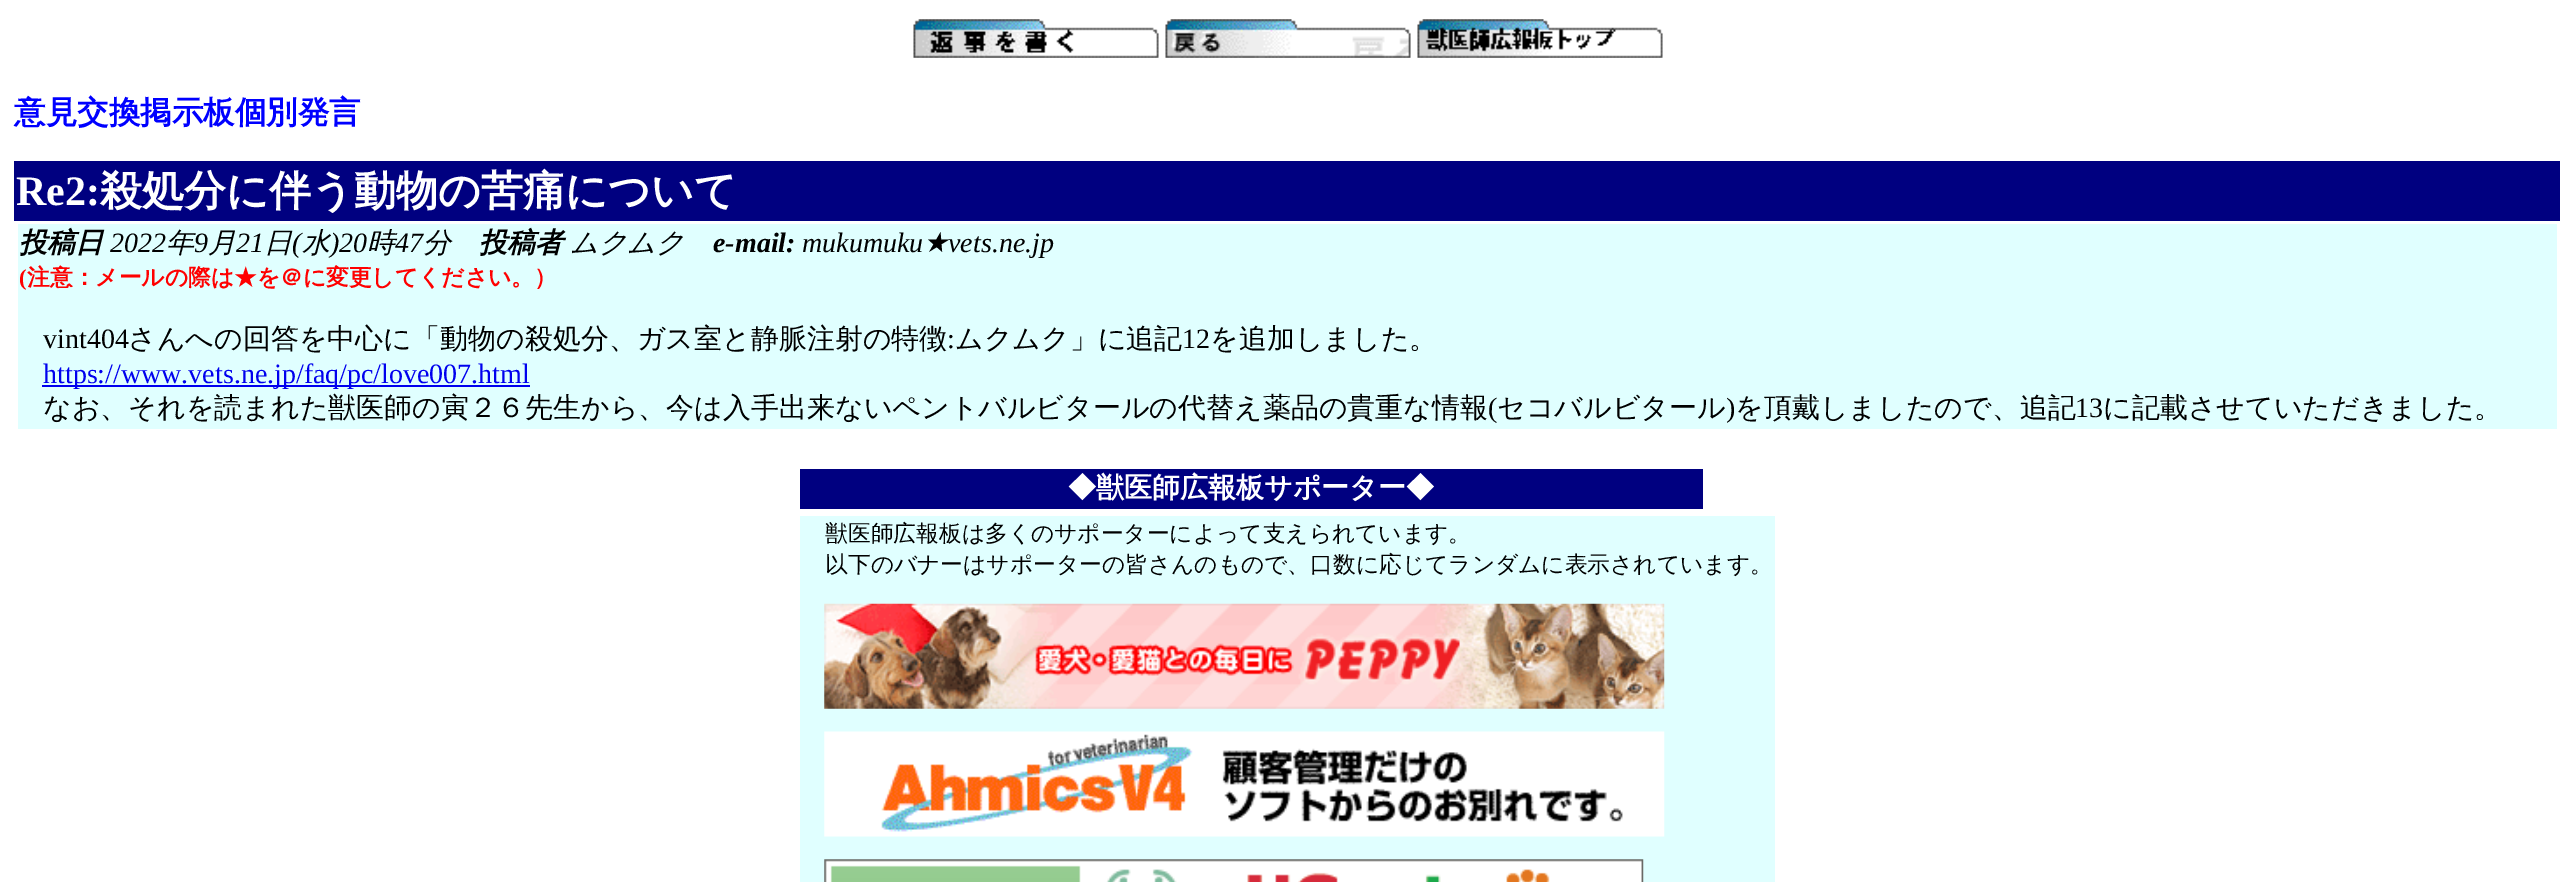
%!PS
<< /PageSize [2574 882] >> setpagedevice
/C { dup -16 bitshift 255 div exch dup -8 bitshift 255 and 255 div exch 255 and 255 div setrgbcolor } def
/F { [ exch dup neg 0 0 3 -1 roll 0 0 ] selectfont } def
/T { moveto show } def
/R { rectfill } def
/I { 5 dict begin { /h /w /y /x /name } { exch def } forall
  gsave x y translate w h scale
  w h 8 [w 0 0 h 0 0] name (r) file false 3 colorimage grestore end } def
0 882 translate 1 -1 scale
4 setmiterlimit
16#FFFFFF C
0 0 2574 882 R
(1.rgb) 913 19 246 39 I
(2.rgb) 1165 19 246 39 I
(3.rgb) 1417 19 246 39 I
/WenQuanYiZenHei-Bold 31.5 F
16#0000FF C
(意見交換掲示板個別発言) 14 123 T
16#000080 C
14 161 2546 60 R
/LiberationSerif-Bold 42 F
16#FFFFFF C
(Re2:) 16 205 T
/WenQuanYiZenHei-Bold 42 F
(殺処分に伴う動物の苦痛について) 100 205 T
16#E0FFFF C
18 224 2539 205 R
/WenQuanYiZenHei-BoldItalic 28 F
16#000000 C
(投稿日) 19 252 T
/LiberationSerif-Italic 28 F
(2022) 110 252 T
/WenQuanYiZenHei-MediumItalic 28 F
(年) 166 252 T
/LiberationSerif-Italic 28 F
(9) 194 252 T
/WenQuanYiZenHei-MediumItalic 28 F
(月) 208 252 T
/LiberationSerif-Italic 28 F
(21) 236 252 T
/WenQuanYiZenHei-MediumItalic 28 F
(日) 264 252 T
/LiberationSerif-Italic 28 F
(\() 292 252 T
/WenQuanYiZenHei-MediumItalic 28 F
(水) 302 252 T
/LiberationSerif-Italic 28 F
(\)20) 330 252 T
/WenQuanYiZenHei-MediumItalic 28 F
(時) 367 252 T
/LiberationSerif-Italic 28 F
(47) 395 252 T
/WenQuanYiZenHei-MediumItalic 28 F
(分) 423 252 T
/WenQuanYiZenHei-BoldItalic 28 F
(投稿者) 479 252 T
/WenQuanYiZenHei-MediumItalic 28 F
(ムクムク) 570 252 T
/LiberationSerif-BoldItalic 28 F
(e-mail:) 713 252 T
/LiberationSerif-Italic 28 F
(mukumuku) 802 252 T
/DejaVuSans-Italic 28 F
(★) 923 252 T
/LiberationSerif-Italic 28 F
(vets.ne.jp) 948 252 T
/LiberationSerif-Bold 22.75 F
16#FF0000 C
(\() 19 285 T
/WenQuanYiZenHei-Bold 22.75 F
(注意：メールの際は★を＠に変更してください。）) 27 285 T
/LiberationSerif-Regular 28 F
16#000000 C
(vint404) 43 348 T
/WenQuanYiZenHei-Medium 28 F
(さんへの回答を中心に「動物の殺処分、ガス室と静脈注射の特徴) 128 348 T
/LiberationSerif-Regular 28 F
(:) 947 348 T
/WenQuanYiZenHei-Medium 28 F
(ムクムク」に追記) 955 348 T
/LiberationSerif-Regular 28 F
(12) 1182 348 T
/WenQuanYiZenHei-Medium 28 F
(を追加しました。) 1210 348 T
16#0000EE C
42 385 488 2 R
/LiberationSerif-Regular 28 F
(https://www.vets.ne.jp/faq/pc/love007.html) 43 383 T
/WenQuanYiZenHei-Medium 28 F
16#000000 C
(なお、それを読まれた獣医師の寅２６先生から、今は入手出来ないペントバルビタールの代替え薬品の貴重な情報) 43 417 T
/LiberationSerif-Regular 28 F
(\() 1488 417 T
/WenQuanYiZenHei-Medium 28 F
(セコバルビタール) 1497 417 T
/LiberationSerif-Regular 28 F
(\)) 1726 417 T
/WenQuanYiZenHei-Medium 28 F
(を頂戴しましたので、追記) 1735 417 T
/LiberationSerif-Regular 28 F
(13) 2075 417 T
/WenQuanYiZenHei-Medium 28 F
(に記載させていただきました。) 2103 417 T
16#000080 C
800 469 903 40 R
/WenQuanYiZenHei-Bold 28 F
16#FFFFFF C
(◆獣医師広報板サポーター◆) 1068 497 T
16#E0FFFF C
800 516 975 366 R
/WenQuanYiZenHei-Medium 22.75 F
16#000000 C
(獣医師広報板は多くのサポーターによって支えられています。) 825 541 T
(以下のバナーはサポーターの皆さんのもので、口数に応じてランダムに表示されています。) 825 572 T
(4.rgb) 824 603 841 106 I
(5.rgb) 824 731 841 106 I
(6.rgb) 824 859 820 23 I
showpage
